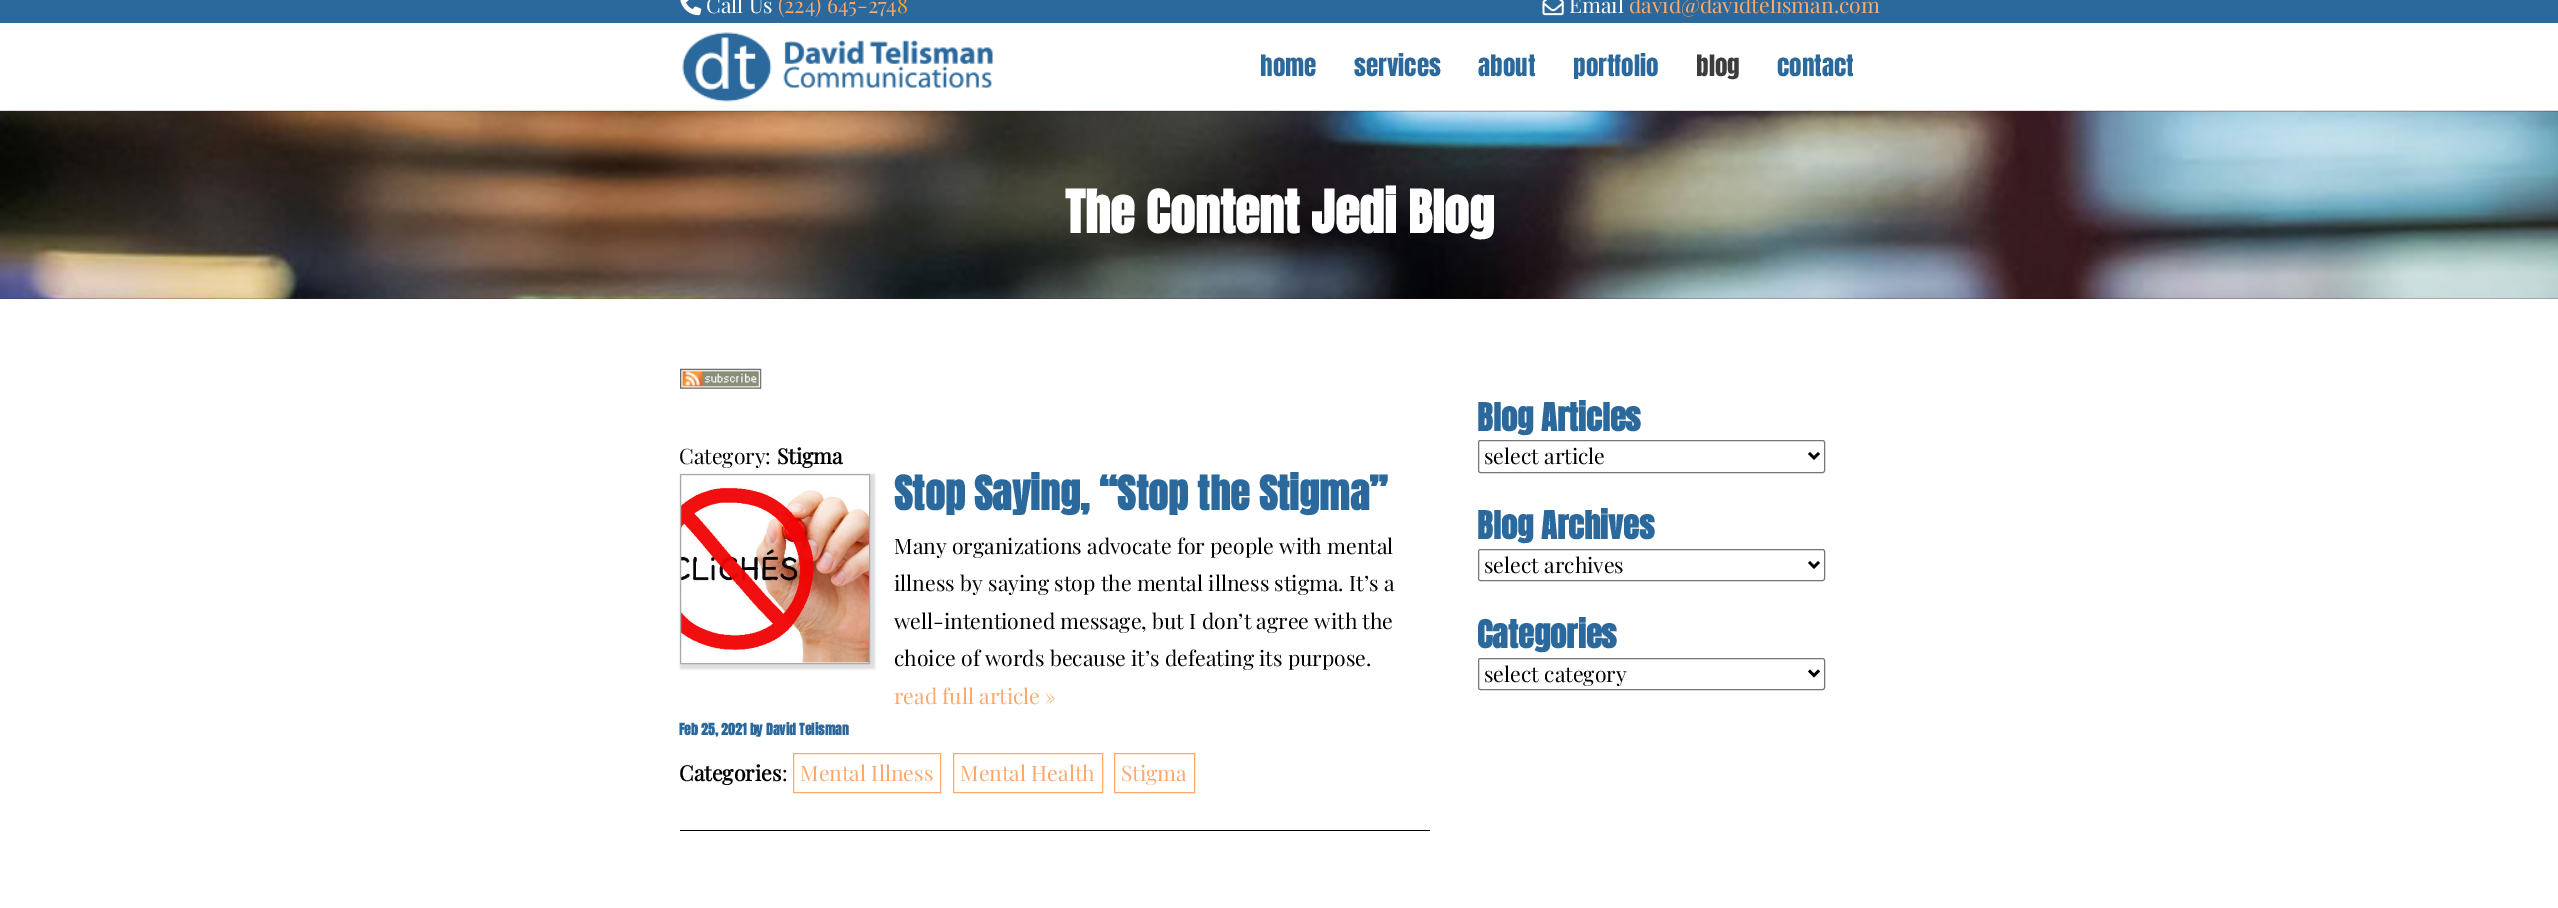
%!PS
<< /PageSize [2558 908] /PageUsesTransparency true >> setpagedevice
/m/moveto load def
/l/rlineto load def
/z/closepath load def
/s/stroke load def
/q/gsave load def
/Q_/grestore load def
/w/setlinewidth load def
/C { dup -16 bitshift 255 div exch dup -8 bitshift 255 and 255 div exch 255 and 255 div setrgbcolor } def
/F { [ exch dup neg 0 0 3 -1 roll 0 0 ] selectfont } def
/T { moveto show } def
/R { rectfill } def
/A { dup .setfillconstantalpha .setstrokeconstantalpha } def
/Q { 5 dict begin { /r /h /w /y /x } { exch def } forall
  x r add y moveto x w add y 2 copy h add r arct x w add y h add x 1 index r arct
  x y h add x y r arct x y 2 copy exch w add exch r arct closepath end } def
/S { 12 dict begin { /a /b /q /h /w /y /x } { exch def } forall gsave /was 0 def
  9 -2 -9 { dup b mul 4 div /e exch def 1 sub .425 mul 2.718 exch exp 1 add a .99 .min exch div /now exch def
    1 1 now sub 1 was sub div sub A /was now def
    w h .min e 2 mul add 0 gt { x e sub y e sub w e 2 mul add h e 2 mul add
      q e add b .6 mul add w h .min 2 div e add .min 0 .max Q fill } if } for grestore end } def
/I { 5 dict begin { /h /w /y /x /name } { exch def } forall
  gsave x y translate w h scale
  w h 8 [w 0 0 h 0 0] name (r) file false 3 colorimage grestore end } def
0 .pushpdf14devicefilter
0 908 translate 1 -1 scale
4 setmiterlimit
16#FFFFFF C
0 0 2558 908 R
16#2B699C C
0 0 2558 23 R
(1.rgb) 680 0 22 16 I
/PlayfairDisplay-Regular 21.25 F
16#FFFFFF C
(Call Us) 706 13 T
16#FCA96D C
(\(224\) 645-274) 778 13 T
16#FBA026 C
(8) 897 13 T
(2.rgb) 1542 0 22 16 I
16#FFFFFF C
(Email) 1569 13 T
16#FCA96D C
(david@davidtelisman.com) 1629 13 T
16#DDDDDD C
0 110 2558 1 R
(3.rgb) 682 32 311 70 I
/Anton-Regular 25 F
16#2B699C C
(home) 1260 76 T
(services) 1354 76 T
(about) 1478 76 T
(portfolio) 1573 76 T
16#3C3C3C C
(blog) 1696 76 T
16#2B699C C
(contact) 1777 76 T
(4.rgb) 0 111 2558 188 I
/Anton-Bold 50 F
16#FFFFFF C
(The Content Jedi Blog) 1065 233 T
(5.rgb) 680 368 82 21 I
/PlayfairDisplay-Regular 21.25 F
16#000000 C
(Category:) 679 464 T
/PlayfairDisplay-Bold 21.25 F
(Stigma) 777 464 T
680 830 750 1 R
q
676 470 m 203 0 l 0 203 l -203 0 l z 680 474 m 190 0 l 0 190 l -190 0 l z eoclip newpath
16#DDDDDD C
680 474 195 195 0 1 1 S
Q_
(6.rgb) 681 484 188 179 I
16#AAAAAA C
680.5 474.5 189 189 rectstroke
/Anton-Bold 40 F
16#2B699C C
(Stop Saying, “Stop the Stigma”) 894 510 T
/PlayfairDisplay-Regular 21.25 F
16#000000 C
(Many organizations advocate for people with mental) 894 554 T
(illness by saying stop the mental illness stigma. It’s a) 894 591 T
(well-intentioned message, but I don’t agree with the) 894 629 T
(choice of words because it’s defeating its purpose.) 894 666 T
16#FCA96D C
(read full article ») 894 704 T
/Anton-Bold 13.75 F
16#2B699C C
(Feb 25, 2021 by David Telisman) 679 735 T
/PlayfairDisplay-Bold 21.25 F
16#000000 C
(Categories) 679 781 T
/PlayfairDisplay-Regular 21.25 F
(:) 782 781 T
16#FCA96D C
793.5 753.5 147 39 rectstroke
(Mental Illness) 800 781 T
953.5 753.5 149 39 rectstroke
(Mental Health) 960 781 T
1114.5 753.5 80 39 rectstroke
(Stigma) 1121 781 T
/Anton-Bold 32.5 F
16#2B699C C
(Blog Articles) 1477 431 T
16#767676 C
1478.5 440.5 346 32 2 Q s
16#000000 C
2.5 w
1809 453 m 5 5 l 5 -5 l s
/PlayfairDisplay-Regular 21.25 F
(select article) 1484 464 T
/Anton-Bold 32.5 F
16#2B699C C
(Blog Archives) 1477 539 T
16#767676 C
1 w
1478.5 549.5 346 31 2 Q s
16#000000 C
2.5 w
1809 562 m 5 5 l 5 -5 l s
/PlayfairDisplay-Regular 21.25 F
(select archives) 1484 573 T
/Anton-Bold 32.5 F
16#2B699C C
(Categories) 1477 648 T
16#767676 C
1 w
1478.5 658.5 346 31 2 Q s
16#000000 C
2.5 w
1809 670.5 m 5 5 l 5 -5 l s
/PlayfairDisplay-Regular 21.25 F
(select category) 1484 682 T
.poppdf14devicefilter showpage
